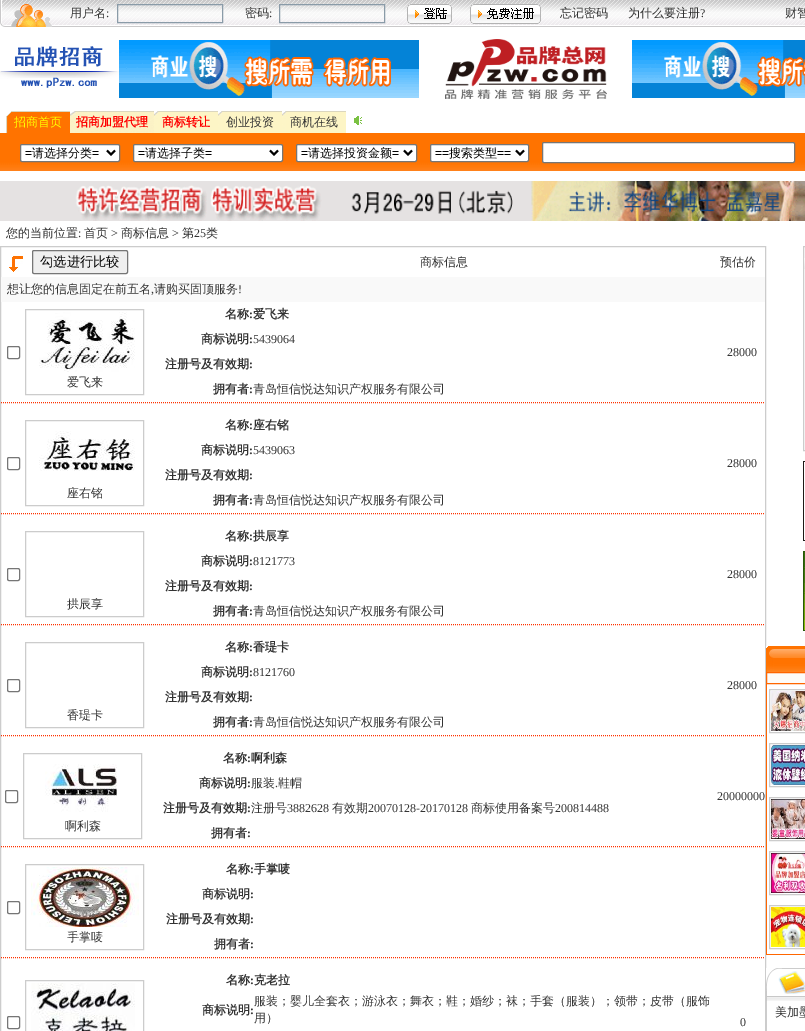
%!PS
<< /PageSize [805 1031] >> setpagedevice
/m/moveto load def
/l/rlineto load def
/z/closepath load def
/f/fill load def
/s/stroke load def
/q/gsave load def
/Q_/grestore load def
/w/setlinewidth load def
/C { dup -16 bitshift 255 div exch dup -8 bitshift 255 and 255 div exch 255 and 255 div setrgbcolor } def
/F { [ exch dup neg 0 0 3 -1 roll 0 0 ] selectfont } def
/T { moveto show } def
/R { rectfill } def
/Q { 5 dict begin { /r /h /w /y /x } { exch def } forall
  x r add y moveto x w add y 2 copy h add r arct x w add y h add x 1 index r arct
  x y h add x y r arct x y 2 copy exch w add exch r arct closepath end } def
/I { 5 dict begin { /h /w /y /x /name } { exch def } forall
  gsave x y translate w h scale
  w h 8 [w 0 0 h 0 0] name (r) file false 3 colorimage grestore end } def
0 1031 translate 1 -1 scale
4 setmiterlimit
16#FFFFFF C
0 0 805 1031 R
(1.rgb) 0 0 10 27 I
(2.rgb) 10 0 795 27 I
(3.rgb) 11 4 41 23 I
/WenQuanYiZenHei-Medium 12 F
16#333333 C
(用户名) 70 17 T
/LiberationSerif-Regular 12 F
(:) 106 17 T
16#8A9BA8 C
117.5 4.5 105 18 rectstroke
/WenQuanYiZenHei-Medium 12 F
16#333333 C
(密码) 245 17 T
/LiberationSerif-Regular 12 F
(:) 269 17 T
16#8A9BA8 C
279.5 4.5 105 18 rectstroke
(4.rgb) 407 4 45 20 I
(5.rgb) 470 4 71 20 I
/WenQuanYiZenHei-Medium 12 F
16#333333 C
(忘记密码) 560 17 T
(为什么要注册) 628 17 T
/LiberationSerif-Regular 12 F
(?) 700 17 T
/WenQuanYiZenHei-Medium 12 F
(财智) 785 17 T
(6.rgb) 0 46 119 42 I
(7.rgb) 119 40 300 58 I
(8.rgb) 445 39 162 60 I
(9.rgb) 632 40 173 58 I
(10.rgb) 6 111 64 22 I
16#FFFF00 C
(招商首页) 14 126 T
(11.rgb) 70 111 84 22 I
/WenQuanYiZenHei-Bold 12 F
16#FF0000 C
(招商加盟代理) 76 126 T
(12.rgb) 154 111 64 22 I
(商标转让) 162 126 T
(12.rgb) 218 111 64 22 I
/WenQuanYiZenHei-Medium 12 F
16#333333 C
(创业投资) 226 126 T
(12.rgb) 282 111 64 22 I
(商机在线) 290 126 T
(13.rgb) 354 116 8 9 I
(14.rgb) 0 133 805 38 I
16#FFFFFF C
20.5 144.5 99 17 1.5 Q q f Q_
16#767676 C
s
16#000000 C
2 w
107 150.5 m 4 4 l 4 -4 l s
/LiberationSans-Regular 12 F
(=) 25 157 T
/WenQuanYiZenHei-Medium 12 F
(请选择分类) 32 157 T
/LiberationSans-Regular 12 F
(=) 92 157 T
16#FFFFFF C
133.5 144.5 149 17 1.5 Q q f Q_
16#767676 C
1 w
s
16#000000 C
2 w
270 150.5 m 4 4 l 4 -4 l s
(=) 138 157 T
/WenQuanYiZenHei-Medium 12 F
(请选择子类) 145 157 T
/LiberationSans-Regular 12 F
(=) 205 157 T
16#FFFFFF C
296.5 144.5 120 17 1.5 Q q f Q_
16#767676 C
1 w
s
16#000000 C
2 w
404 150.5 m 4 4 l 4 -4 l s
(=) 301 157 T
/WenQuanYiZenHei-Medium 12 F
(请选择投资金额) 308 157 T
/LiberationSans-Regular 12 F
(=) 392 157 T
16#FFFFFF C
430.5 144.5 98 17 1.5 Q q f Q_
16#767676 C
1 w
s
16#000000 C
2 w
516 150.5 m 4 4 l 4 -4 l s
(==) 435 157 T
/WenQuanYiZenHei-Medium 12 F
(搜索类型) 449 157 T
/LiberationSans-Regular 12 F
(==) 497 157 T
16#FFFFFF C
542.5 142.5 252 20 1.5 Q q f Q_
16#767676 C
1 w
s
(15.rgb) 0 181 805 40 I
/WenQuanYiZenHei-Medium 12 F
16#333333 C
(您的当前位置) 6 237 T
/LiberationSerif-Regular 12 F
(:) 78 237 T
/WenQuanYiZenHei-Medium 12 F
(首页) 84 237 T
/LiberationSerif-Regular 12 F
(>) 111 237 T
/WenQuanYiZenHei-Medium 12 F
(商标信息) 121 237 T
/LiberationSerif-Regular 12 F
(>) 172 237 T
/WenQuanYiZenHei-Medium 12 F
(第) 182 237 T
/LiberationSerif-Regular 12 F
(25) 194 237 T
/WenQuanYiZenHei-Medium 12 F
(类) 206 237 T
16#CCCCCC C
.5 246.5 765 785 rectstroke
(16.rgb) 9 256 14 16 I
16#EFEFEF C
32.5 250.5 95 23 1.5 Q q f Q_
16#767676 C
s
/WenQuanYiZenHei-Medium 13.25 F
16#000000 C
(勾选进行比较) 40 266 T
/WenQuanYiZenHei-Medium 12 F
16#333333 C
(商标信息) 420 266 T
(预估价) 720 266 T
16#F9F9F9 C
1 277 764 25 R
16#333333 C
(想让您的信息固定在前五名) 7 293 T
/LiberationSerif-Regular 12 F
(,) 151 293 T
/WenQuanYiZenHei-Medium 12 F
(请购买固顶服务) 154 293 T
/LiberationSerif-Regular 12 F
(!) 238 293 T
16#FF3300 C
[1 1] 0 setdash
1 402.5 m 764 0 l s
16#767676 C
[] 0 setdash
7.5 346.5 12 12 1.5 Q s
/WenQuanYiZenHei-Bold 12 F
16#333333 C
(名称) 225 318 T
/LiberationSerif-Bold 12 F
(:) 249 318 T
/WenQuanYiZenHei-Bold 12 F
(爱飞来) 253 318 T
(商标说明) 201 343 T
/LiberationSerif-Bold 12 F
(:) 249 343 T
/LiberationSerif-Regular 12 F
(5439064) 253 343 T
/WenQuanYiZenHei-Bold 12 F
(注册号及有效期) 165 368 T
/LiberationSerif-Bold 12 F
(:) 249 368 T
/WenQuanYiZenHei-Bold 12 F
(拥有者) 213 393 T
/LiberationSerif-Bold 12 F
(:) 249 393 T
/WenQuanYiZenHei-Medium 12 F
(青岛恒信悦达知识产权服务有限公司) 253 393 T
/LiberationSerif-Regular 12 F
(28000) 727 356 T
16#CCCCCC C
25.5 309.5 118 85 rectstroke
(17.rgb) 39 312 96 60 I
/WenQuanYiZenHei-Medium 12 F
16#333333 C
(爱飞来) 67 386 T
16#FF3300 C
[1 1] 0 setdash
1 513.5 m 764 0 l s
16#767676 C
[] 0 setdash
7.5 457.5 12 12 1.5 Q s
/WenQuanYiZenHei-Bold 12 F
16#333333 C
(名称) 225 429 T
/LiberationSerif-Bold 12 F
(:) 249 429 T
/WenQuanYiZenHei-Bold 12 F
(座右铭) 253 429 T
(商标说明) 201 454 T
/LiberationSerif-Bold 12 F
(:) 249 454 T
/LiberationSerif-Regular 12 F
(5439063) 253 454 T
/WenQuanYiZenHei-Bold 12 F
(注册号及有效期) 165 479 T
/LiberationSerif-Bold 12 F
(:) 249 479 T
/WenQuanYiZenHei-Bold 12 F
(拥有者) 213 504 T
/LiberationSerif-Bold 12 F
(:) 249 504 T
/WenQuanYiZenHei-Medium 12 F
(青岛恒信悦达知识产权服务有限公司) 253 504 T
/LiberationSerif-Regular 12 F
(28000) 727 467 T
16#CCCCCC C
25.5 420.5 118 85 rectstroke
(18.rgb) 39 431 96 40 I
/WenQuanYiZenHei-Medium 12 F
16#333333 C
(座右铭) 67 497 T
16#FF3300 C
[1 1] 0 setdash
1 624.5 m 764 0 l s
16#767676 C
[] 0 setdash
7.5 568.5 12 12 1.5 Q s
/WenQuanYiZenHei-Bold 12 F
16#333333 C
(名称) 225 540 T
/LiberationSerif-Bold 12 F
(:) 249 540 T
/WenQuanYiZenHei-Bold 12 F
(拱辰享) 253 540 T
(商标说明) 201 565 T
/LiberationSerif-Bold 12 F
(:) 249 565 T
/LiberationSerif-Regular 12 F
(8121773) 253 565 T
/WenQuanYiZenHei-Bold 12 F
(注册号及有效期) 165 590 T
/LiberationSerif-Bold 12 F
(:) 249 590 T
/WenQuanYiZenHei-Bold 12 F
(拥有者) 213 615 T
/LiberationSerif-Bold 12 F
(:) 249 615 T
/WenQuanYiZenHei-Medium 12 F
(青岛恒信悦达知识产权服务有限公司) 253 615 T
/LiberationSerif-Regular 12 F
(28000) 727 578 T
16#CCCCCC C
25.5 531.5 118 85 rectstroke
/WenQuanYiZenHei-Medium 12 F
16#333333 C
(拱辰享) 67 608 T
16#FF3300 C
[1 1] 0 setdash
1 735.5 m 764 0 l s
16#767676 C
[] 0 setdash
7.5 679.5 12 12 1.5 Q s
/WenQuanYiZenHei-Bold 12 F
16#333333 C
(名称) 225 651 T
/LiberationSerif-Bold 12 F
(:) 249 651 T
/WenQuanYiZenHei-Bold 12 F
(香瑅卡) 253 651 T
(商标说明) 201 676 T
/LiberationSerif-Bold 12 F
(:) 249 676 T
/LiberationSerif-Regular 12 F
(8121760) 253 676 T
/WenQuanYiZenHei-Bold 12 F
(注册号及有效期) 165 701 T
/LiberationSerif-Bold 12 F
(:) 249 701 T
/WenQuanYiZenHei-Bold 12 F
(拥有者) 213 726 T
/LiberationSerif-Bold 12 F
(:) 249 726 T
/WenQuanYiZenHei-Medium 12 F
(青岛恒信悦达知识产权服务有限公司) 253 726 T
/LiberationSerif-Regular 12 F
(28000) 727 689 T
16#CCCCCC C
25.5 642.5 118 85 rectstroke
/WenQuanYiZenHei-Medium 12 F
16#333333 C
(香瑅卡) 67 719 T
16#FF3300 C
[1 1] 0 setdash
1 846.5 m 764 0 l s
16#767676 C
[] 0 setdash
5.5 790.5 12 12 1.5 Q s
/WenQuanYiZenHei-Bold 12 F
16#333333 C
(名称) 223 762 T
/LiberationSerif-Bold 12 F
(:) 247 762 T
/WenQuanYiZenHei-Bold 12 F
(啊利森) 251 762 T
(商标说明) 199 787 T
/LiberationSerif-Bold 12 F
(:) 247 787 T
/WenQuanYiZenHei-Medium 12 F
(服装) 251 787 T
/LiberationSerif-Regular 12 F
(.) 275 787 T
/WenQuanYiZenHei-Medium 12 F
(鞋帽) 278 787 T
/WenQuanYiZenHei-Bold 12 F
(注册号及有效期) 163 812 T
/LiberationSerif-Bold 12 F
(:) 247 812 T
/WenQuanYiZenHei-Medium 12 F
(注册号) 251 812 T
/LiberationSerif-Regular 12 F
(3882628) 287 812 T
/WenQuanYiZenHei-Medium 12 F
(有效期) 332 812 T
/LiberationSerif-Regular 12 F
(20070128-20170128) 368 812 T
/WenQuanYiZenHei-Medium 12 F
(商标使用备案号) 471 812 T
/LiberationSerif-Regular 12 F
(200814488) 555 812 T
/WenQuanYiZenHei-Bold 12 F
(拥有者) 211 837 T
/LiberationSerif-Bold 12 F
(:) 247 837 T
/LiberationSerif-Regular 12 F
(20000000) 717 800 T
16#CCCCCC C
23.5 753.5 118 85 rectstroke
(19.rgb) 45 764 72 48 I
/WenQuanYiZenHei-Medium 12 F
16#333333 C
(啊利森) 65 830 T
16#FF3300 C
[1 1] 0 setdash
1 957.5 m 764 0 l s
16#767676 C
[] 0 setdash
7.5 901.5 12 12 1.5 Q s
/WenQuanYiZenHei-Bold 12 F
16#333333 C
(名称) 226 873 T
/LiberationSerif-Bold 12 F
(:) 250 873 T
/WenQuanYiZenHei-Bold 12 F
(手掌唛) 254 873 T
(商标说明) 202 898 T
/LiberationSerif-Bold 12 F
(:) 250 898 T
/WenQuanYiZenHei-Bold 12 F
(注册号及有效期) 166 923 T
/LiberationSerif-Bold 12 F
(:) 250 923 T
/WenQuanYiZenHei-Bold 12 F
(拥有者) 214 948 T
/LiberationSerif-Bold 12 F
(:) 250 948 T
16#CCCCCC C
25.5 864.5 118 85 rectstroke
(20.rgb) 31 867 108 60 I
/WenQuanYiZenHei-Medium 12 F
16#333333 C
(手掌唛) 67 941 T
16#767676 C
7.5 1016.5 12 12 1.5 Q s
16#CCCCCC C
25.5 980.5 118 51 rectstroke
(21.rgb) 31 983 104 48 I
/WenQuanYiZenHei-Bold 12 F
16#333333 C
(名称) 226 984 T
/LiberationSerif-Bold 12 F
(:) 250 984 T
/WenQuanYiZenHei-Bold 12 F
(克老拉) 254 984 T
(商标说明) 202 1014 T
/LiberationSerif-Bold 12 F
(:) 250 1014 T
/WenQuanYiZenHei-Medium 12 F
(服装；婴儿全套衣；游泳衣；舞衣；鞋；婚纱；袜；手套（服装）；领带；皮带（服饰) 254 1005 T
(用）) 254 1022 T
/LiberationSerif-Regular 12 F
(0) 740 1026 T
16#CCCCCC C
803.5 246.5 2 204 rectstroke
(22.rgb) 804 258 1 11 I
(23.rgb) 803 461 2 80 I
(24.rgb) 803 551 2 80 I
(25.rgb) 774 646 2 26 I
(26.rgb) 766 646 8 26 I
(27.rgb) 776 646 29 26 I
16#FDFCF9 C
766.5 672.5 m 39 0 l 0 11 l -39 0 l z q f Q_
16#FF6600 C
s
766 954 39 1 R
766 684 1 271 R
16#CCCCCC C
769.5 689.5 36 43 rectstroke
(28.rgb) 771 691 34 40 I
769.5 743.5 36 43 rectstroke
(29.rgb) 771 745 34 40 I
769.5 797.5 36 43 rectstroke
(30.rgb) 771 799 34 40 I
769.5 851.5 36 43 rectstroke
(31.rgb) 771 853 34 40 I
769.5 905.5 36 43 rectstroke
(32.rgb) 771 907 34 40 I
(33.rgb) 766 968 39 33 I
766 1001 1 30 R
/WenQuanYiZenHei-Medium 12 F
16#333333 C
(美加墨) 775 1016 T
showpage
